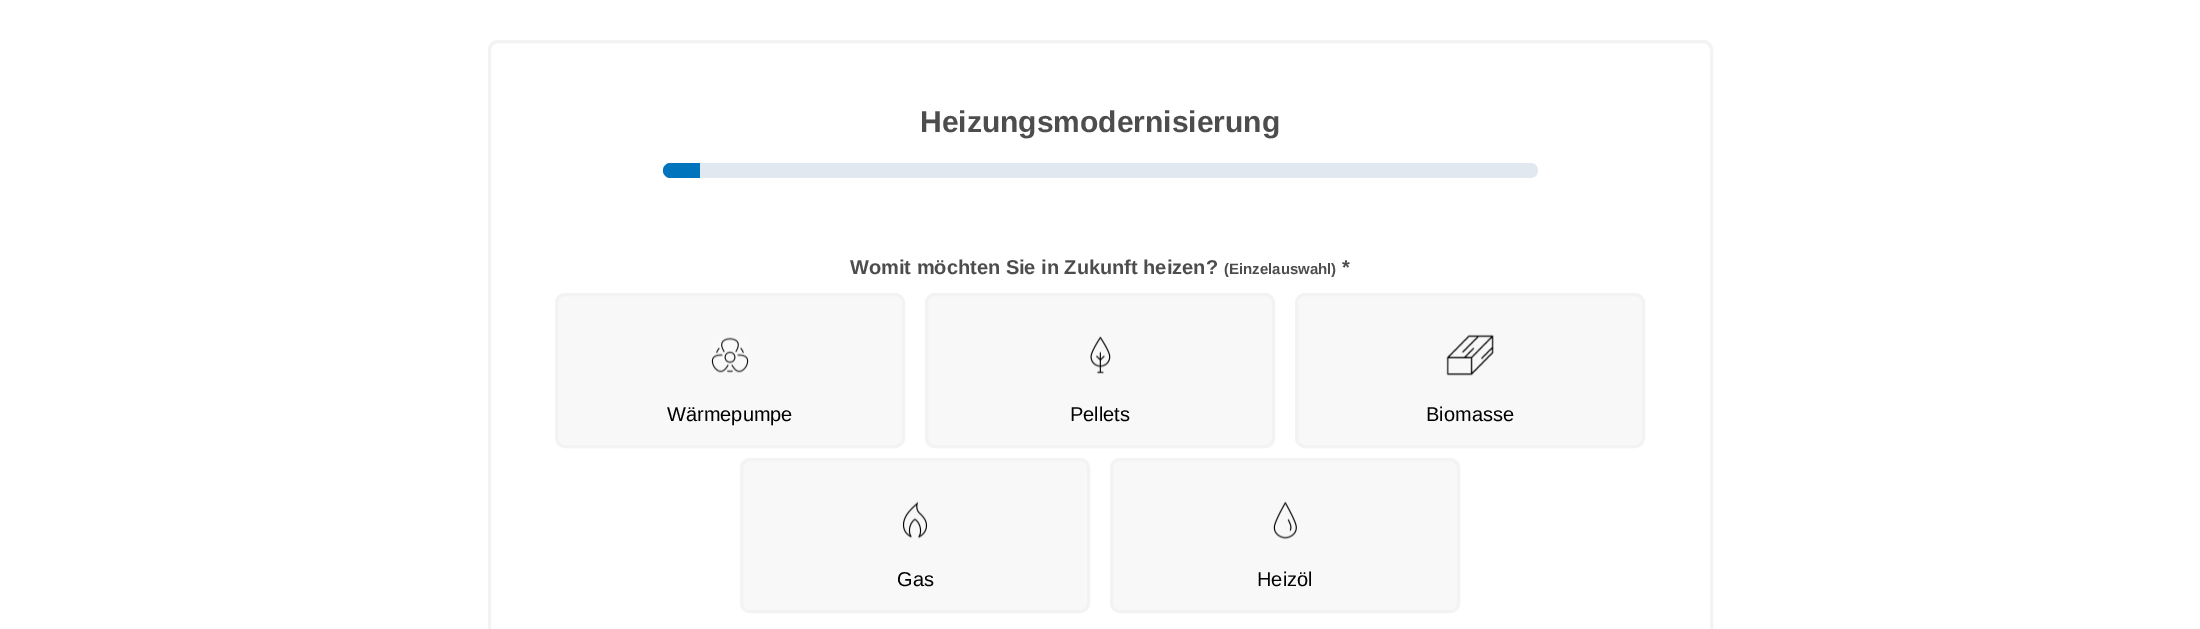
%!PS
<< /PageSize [2200 629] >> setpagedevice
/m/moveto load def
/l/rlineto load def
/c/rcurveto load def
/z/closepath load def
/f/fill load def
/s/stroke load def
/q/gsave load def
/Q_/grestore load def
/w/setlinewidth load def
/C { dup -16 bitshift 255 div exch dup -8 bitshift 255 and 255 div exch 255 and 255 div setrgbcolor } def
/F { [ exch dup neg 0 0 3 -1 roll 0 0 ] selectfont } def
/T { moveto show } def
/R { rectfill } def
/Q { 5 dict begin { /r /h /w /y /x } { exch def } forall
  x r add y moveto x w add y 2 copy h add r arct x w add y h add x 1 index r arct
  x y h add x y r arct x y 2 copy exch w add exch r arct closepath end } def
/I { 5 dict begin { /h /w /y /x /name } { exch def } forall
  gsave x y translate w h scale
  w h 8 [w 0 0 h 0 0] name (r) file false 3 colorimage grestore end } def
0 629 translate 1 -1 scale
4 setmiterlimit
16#FFFFFF C
0 0 2200 629 R
16#F3F3F3 C
3 w
489.5 41.5 1222 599 8.5 Q s
/LiberationSans-Bold 30 F
16#4D4D4D C
(Heizungsmodernisierung) 920 132 T
16#E2E8F0 C
663 163 875 15 7.5 Q f
16#0074BC C
670.5 163 m 29.5 0 l 0 15 l -29.5 0 l -4 0 -7.5 -3.5 -7.5 -7.5 c 0 -4 3.5 -7.5 7.5 -7.5 c z f
/LiberationSans-Bold 20 F
16#4D4D4D C
(Womit möchten Sie in Zukunft heizen?) 850 274 T
/LiberationSans-Bold 15 F
(\(Einzelauswahl\)) 1224 274 T
/LiberationSans-Bold 20 F
(*) 1342 274 T
16#F8F8F8 C
556.5 294.5 347 152 8.5 Q q f Q_
16#F3F3F3 C
s
(1.rgb) 711 337 38 36 I
/LiberationSans-Regular 20 F
16#000000 C
(Wärmepumpe) 667 421 T
16#F8F8F8 C
926.5 294.5 347 152 8.5 Q q f Q_
16#F3F3F3 C
s
(2.rgb) 1090 336 21 38 I
16#000000 C
(Pellets) 1070 421 T
16#F8F8F8 C
1296.5 294.5 347 152 8.5 Q q f Q_
16#F3F3F3 C
s
(3.rgb) 1446 334 48 42 I
16#000000 C
(Biomasse) 1426 421 T
16#F8F8F8 C
741.5 459.5 347 152 8.5 Q q f Q_
16#F3F3F3 C
s
(4.rgb) 902 501 26 38 I
16#000000 C
(Gas) 897 586 T
16#F8F8F8 C
1111.5 459.5 347 152 8.5 Q q f Q_
16#F3F3F3 C
s
(5.rgb) 1273 501 24 39 I
16#000000 C
(Heizöl) 1257 586 T
showpage
